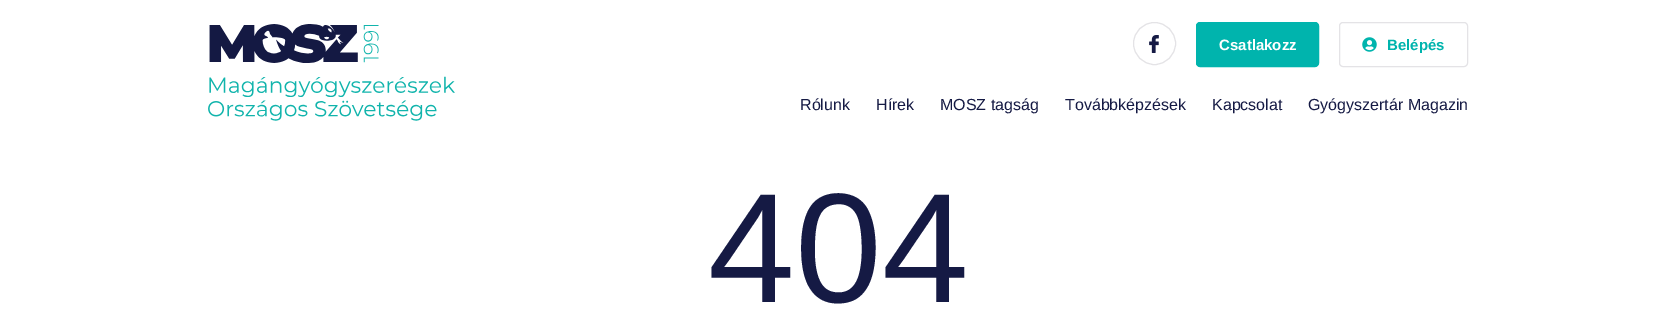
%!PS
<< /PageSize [1676 311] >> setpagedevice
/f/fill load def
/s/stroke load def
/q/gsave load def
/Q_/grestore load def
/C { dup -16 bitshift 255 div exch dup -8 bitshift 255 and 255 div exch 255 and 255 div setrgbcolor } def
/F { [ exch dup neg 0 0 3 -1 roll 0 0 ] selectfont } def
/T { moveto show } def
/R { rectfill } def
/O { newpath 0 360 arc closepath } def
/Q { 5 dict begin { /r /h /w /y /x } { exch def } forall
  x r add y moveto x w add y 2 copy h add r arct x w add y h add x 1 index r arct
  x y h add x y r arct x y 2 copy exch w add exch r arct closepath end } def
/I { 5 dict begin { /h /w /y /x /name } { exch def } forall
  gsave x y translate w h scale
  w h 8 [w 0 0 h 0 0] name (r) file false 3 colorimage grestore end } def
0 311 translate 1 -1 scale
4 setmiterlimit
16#FFFFFF C
0 0 1676 311 R
(1.rgb) 208 24 247 97 I
16#E4E3E6 C
1154.5 43.5 21 O s
(2.rgb) 1149 35 10 18 I
16#00B4AD C
1196.5 22.5 122 44 3.5 Q q f Q_
s
/LiberationSans-Bold 15 F
16#FFFFFF C
(Csatlakozz) 1219 50 T
16#E4E3E6 C
1339.5 22.5 128 44 3.5 Q s
(3.rgb) 1362 37 15 15 I
16#00B4AD C
(Belépés) 1387 50 T
/LiberationSans-Regular 16 F
16#151A44 C
(Rólunk) 800 110 T
(Hírek) 876 110 T
(MOSZ tagság) 940 110 T
(Továbbképzések) 1065 110 T
(Kapcsolat) 1212 110 T
(Gyógyszertár Magazin) 1308 110 T
/LiberationSans-Regular 156 F
(404) 708 302 T
showpage
